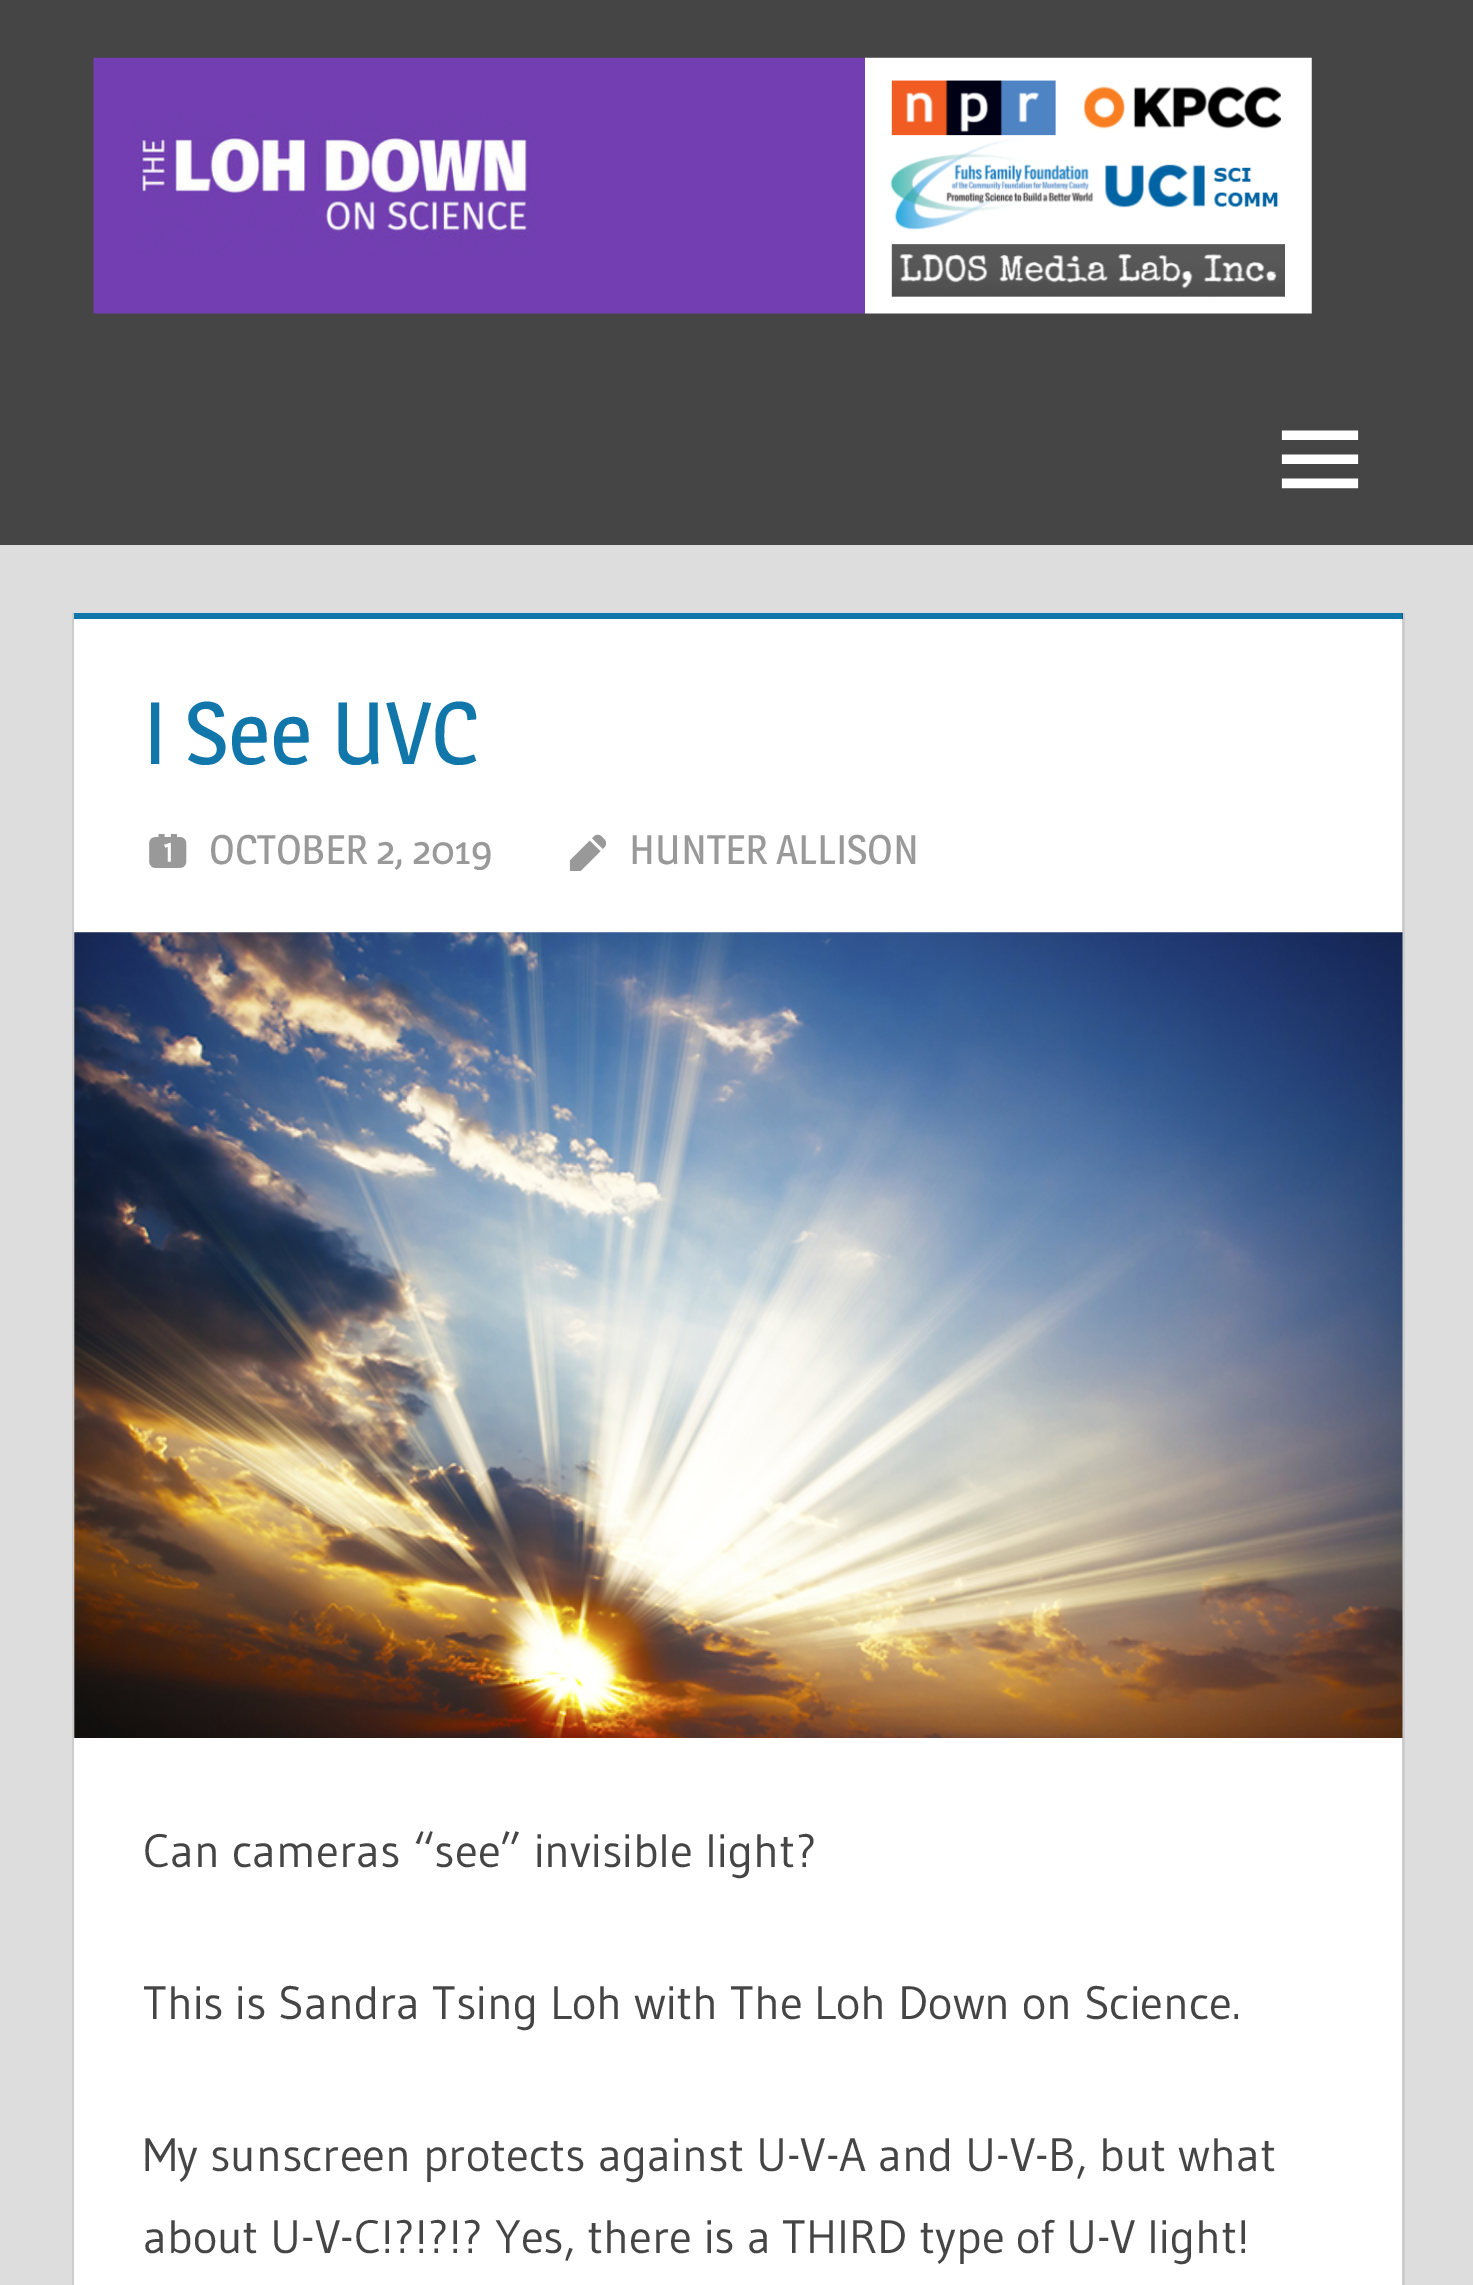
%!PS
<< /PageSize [1473 2285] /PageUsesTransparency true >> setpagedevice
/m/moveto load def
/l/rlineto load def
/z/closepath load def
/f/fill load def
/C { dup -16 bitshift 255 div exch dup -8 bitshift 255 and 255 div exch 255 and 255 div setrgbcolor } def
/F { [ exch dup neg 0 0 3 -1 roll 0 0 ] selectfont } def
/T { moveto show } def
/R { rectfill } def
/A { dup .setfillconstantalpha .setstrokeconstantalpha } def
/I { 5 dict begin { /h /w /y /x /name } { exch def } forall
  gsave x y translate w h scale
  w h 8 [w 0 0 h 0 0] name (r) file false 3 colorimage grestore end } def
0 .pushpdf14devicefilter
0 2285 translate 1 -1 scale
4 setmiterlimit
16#DDDDDD C
0 0 1473 2285 R
16#454545 C
0 0 1473 545 R
(1.rgb) 93 57 1219 257 I
(2.rgb) 1281 430 78 59 I
16#FFFFFF C
74 613 1331 1672 R
16#1177AA C
74 613 1329 6 R
0.2 A
16#000000 C
1405 613 m 0 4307 l -3 -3 l 0 -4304 l z f
1 A
16#CCCCCC C
72 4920 m 0 -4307 l 2 0 l 0 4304 l z f
/Magra-Regular 88 F
16#1177AA C
(I See UVC) 143 764 T
(3.rgb) 149 834 38 34 I
/Magra-Regular 41.25 F
16#999999 C
(OCTOBER 2, 2019) 209 864 T
(4.rgb) 569 834 38 37 I
(HUNTER ALLISON) 629 864 T
(5.rgb) 74 932 1329 806 I
/Gudea-Regular 46.75 F
16#454545 C
(Can cameras “see” invisible light?) 143 1867 T
(This is Sandra Tsing Loh with The Loh Down on Science.) 143 2019 T
(My sunscreen protects against U-V-A and U-V-B, but what) 143 2171 T
(about U-V-C!?!?!? Yes, there is a THIRD type of U-V light!) 143 2253 T
.poppdf14devicefilter showpage
